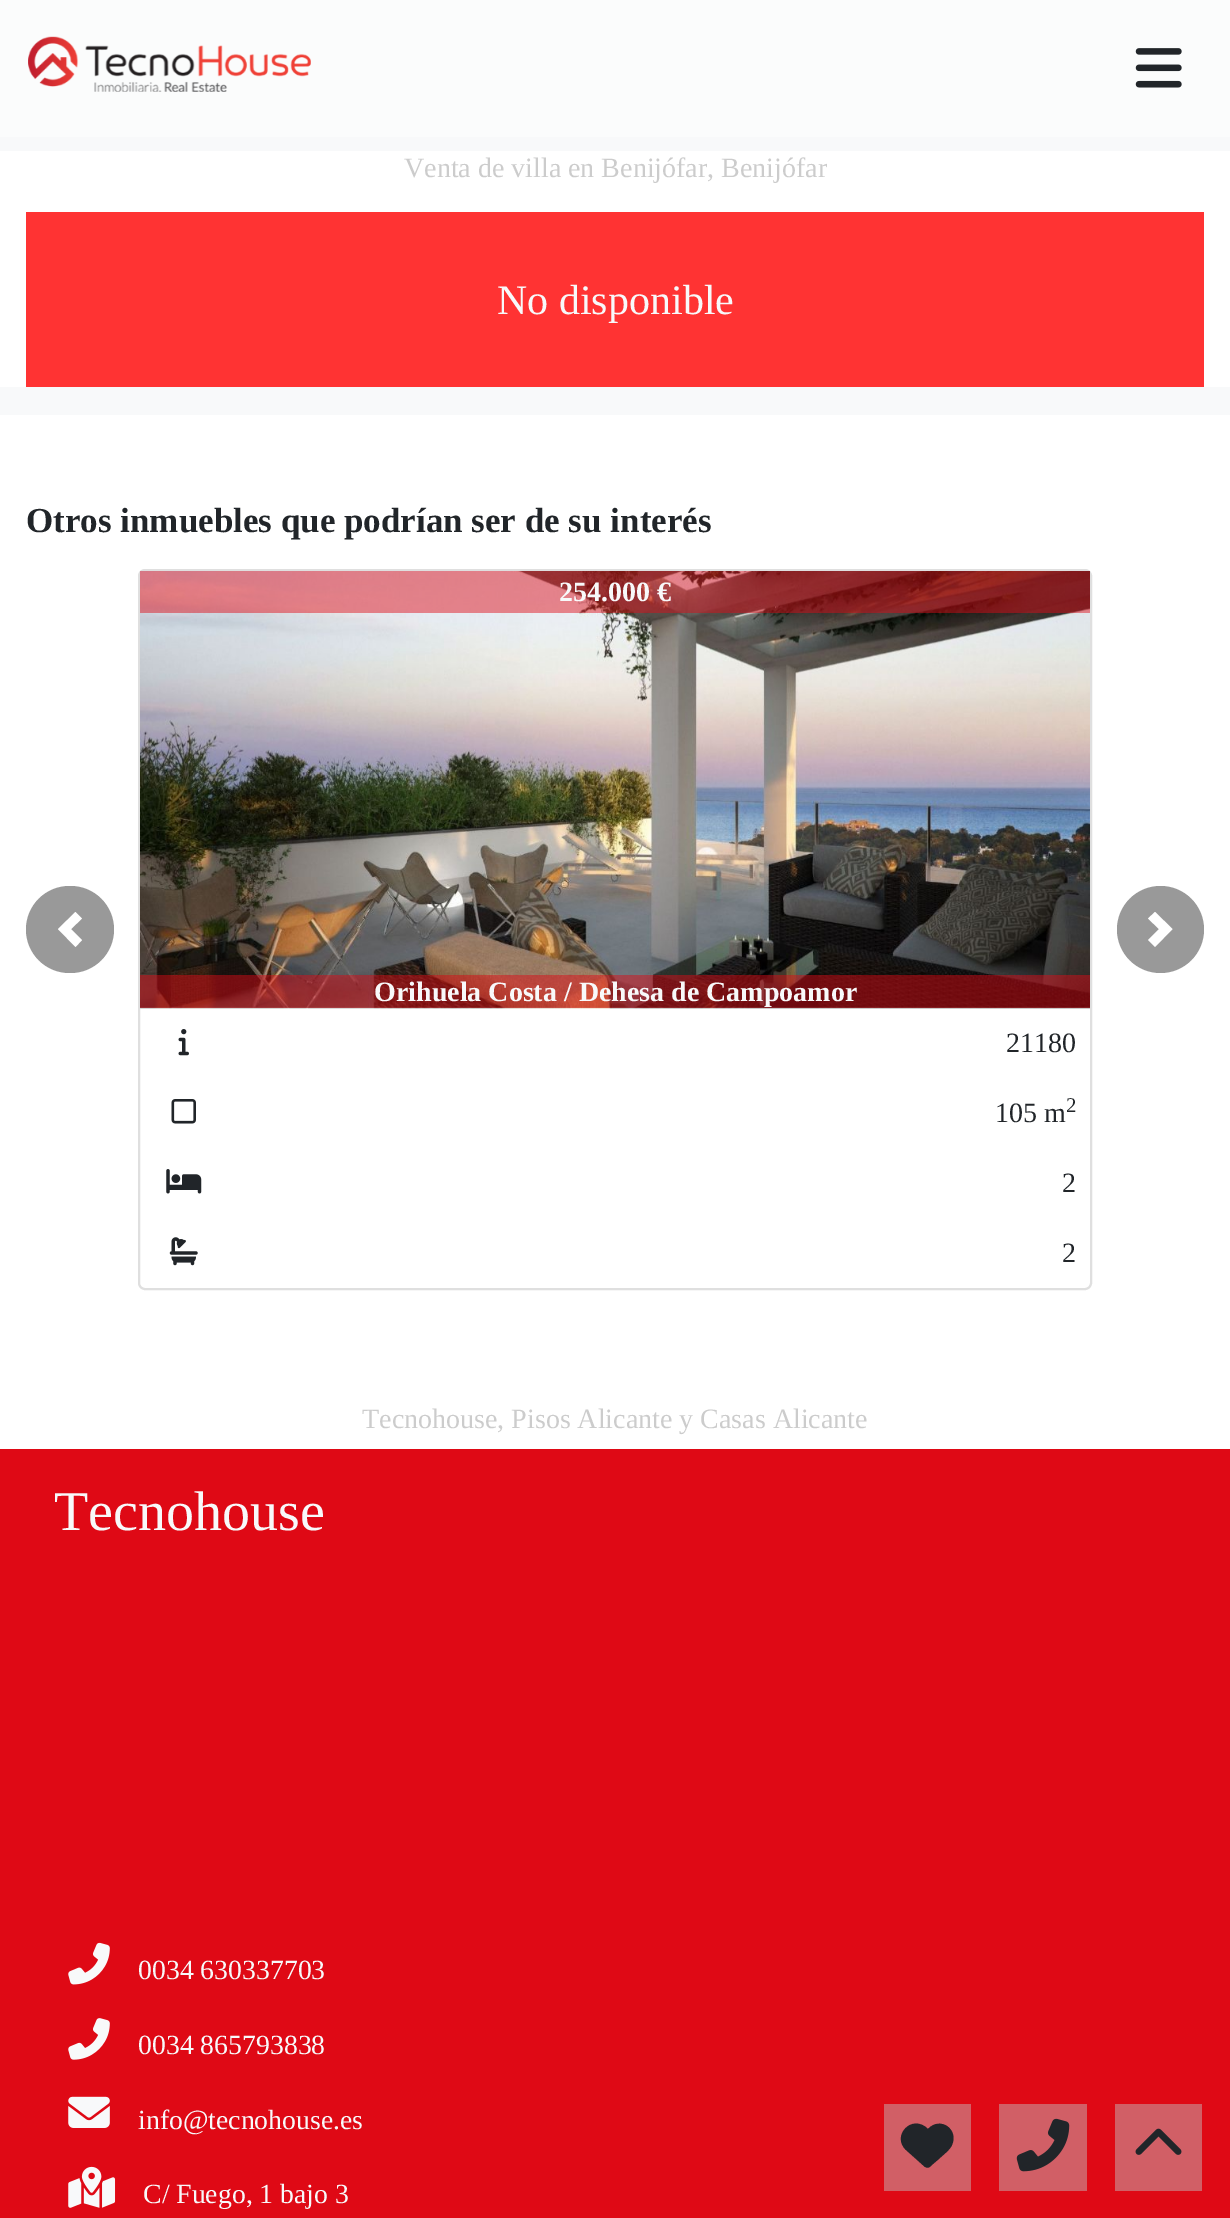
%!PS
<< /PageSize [1230 2218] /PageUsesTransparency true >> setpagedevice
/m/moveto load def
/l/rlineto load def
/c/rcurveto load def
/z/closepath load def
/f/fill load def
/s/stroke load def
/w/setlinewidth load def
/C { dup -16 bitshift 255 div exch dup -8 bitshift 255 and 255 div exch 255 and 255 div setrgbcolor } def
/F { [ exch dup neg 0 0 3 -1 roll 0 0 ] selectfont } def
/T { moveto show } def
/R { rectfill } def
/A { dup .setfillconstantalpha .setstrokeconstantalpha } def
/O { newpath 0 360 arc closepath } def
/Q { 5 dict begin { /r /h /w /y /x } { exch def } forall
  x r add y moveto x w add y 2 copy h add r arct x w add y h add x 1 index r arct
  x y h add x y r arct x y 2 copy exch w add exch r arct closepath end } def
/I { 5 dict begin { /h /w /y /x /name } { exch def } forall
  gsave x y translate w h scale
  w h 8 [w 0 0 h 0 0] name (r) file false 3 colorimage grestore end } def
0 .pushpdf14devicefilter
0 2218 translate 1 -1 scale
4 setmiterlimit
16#FFFFFF C
0 0 1230 2218 R
16#FBFCFC C
0 0 1230 137 R
(1.rgb) 28 36 283 56 I
(2.rgb) 1135 48 47 40 I
16#F8F9FA C
0 137 1230 278 R
16#FFFFFF C
0 151 1230 236 R
/LiberationSerif-Regular 28 F
16#CCCCCC C
(Venta de villa en Benijófar, Benijófar) 404 177 T
16#FF3333 C
26 212 1178 175 R
/LiberationSerif-Regular 42 F
16#F8F9FA C
(No disponible) 497 314 T
/LiberationSerif-Bold 35 F
16#212529 C
(Otros inmuebles que podrían ser de su interés) 26 532 T
16#999999 C
26 886 88 87 43.5 Q f
16#FFFFFF C
75.5 912 m -17.5 17 l 17.5 18 l 6.5 -7 l -11 -11 l 11 -10.5 l z f
16#DFDFDF C
2 w
139 570 952 719 6 Q s
(3.rgb) 140 571 950 438 I
0.47 A
16#DF0915 C
140 571 950 42 R
/LiberationSerif-Bold 28 F
1 A
16#F8F9FA C
(254.000 €) 559 601 T
0.47 A
16#DF0915 C
140 975 950 33 R
1 A
16#F8F9FA C
(Orihuela Costa / Dehesa de Campoamor) 374 1001 T
(4.rgb) 178 1029 11 27 I
/LiberationSerif-Regular 28 F
16#212529 C
(21180) 1006 1052 T
(5.rgb) 171 1099 25 25 I
(105 m) 995 1122 T
/LiberationSerif-Regular 21 F
(2) 1066 1112 T
(6.rgb) 166 1169 36 25 I
/LiberationSerif-Regular 28 F
(2) 1062 1192 T
(7.rgb) 169 1237 29 29 I
(2) 1062 1262 T
16#999999 C
1160.5 929.5 43.5 O f
16#FFFFFF C
1155 912 m -7 6.5 l 11 10.5 l -11 11 l 7 7 l 17.5 -18 l z f
16#CCCCCC C
(Tecnohouse, Pisos Alicante y Casas Alicante) 362 1428 T
16#DF0915 C
0 1449 1230 769 R
/LiberationSerif-Regular 56 F
16#F8F9FA C
(Tecnohouse) 54 1530 T
(8.rgb) 68 1942 42 43 I
/LiberationSerif-Regular 27.75 F
(0034 630337703) 138 1979 T
(9.rgb) 68 2018 42 42 I
(0034 865793838) 138 2054 T
(10.rgb) 68 2096 42 32 I
(info@tecnohouse.es) 138 2129 T
(11.rgb) 68 2166 48 42 I
(C/ Fuego, 1 bajo 3) 143 2203 T
16#D15F66 C
884 2104 87 87 R
16#212529 C
906 2150 m 19 17 l -19 -17 l 16 14 l 5 5 6 5 11 0 c 7 -6 l 4 -4 10 -8 12 -13 c 7 -16 -12 -29 -24 -16 c -16 -16 -37 7 -22 21 c z f
16#D15F66 C
999 2104 88 87 R
(12.rgb) 1016 2118 54 54 I
1115 2104 87 87 R
(13.rgb) 1135 2128 47 27 I
.poppdf14devicefilter showpage
